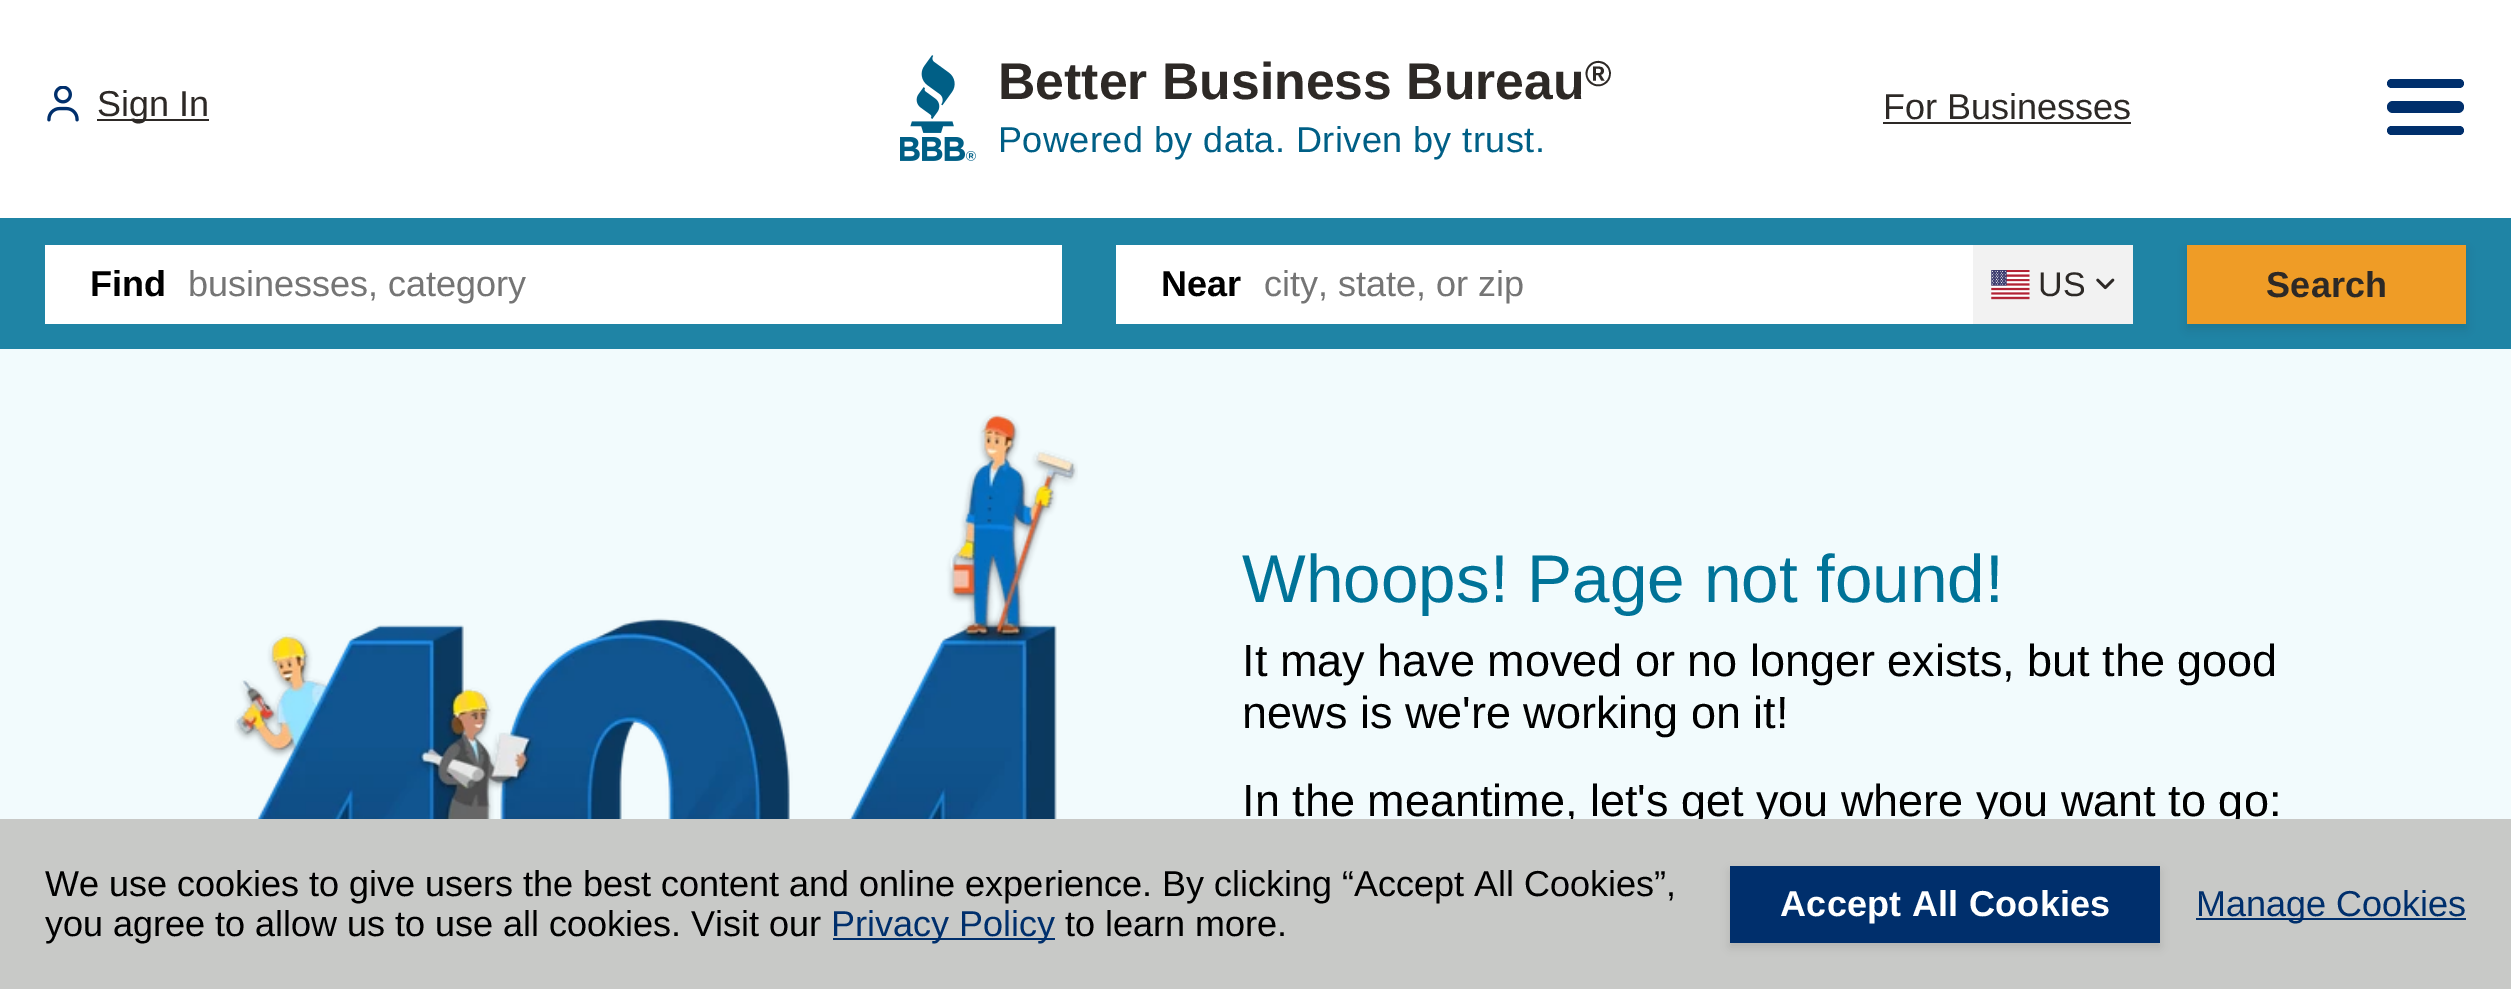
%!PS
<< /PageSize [2511 989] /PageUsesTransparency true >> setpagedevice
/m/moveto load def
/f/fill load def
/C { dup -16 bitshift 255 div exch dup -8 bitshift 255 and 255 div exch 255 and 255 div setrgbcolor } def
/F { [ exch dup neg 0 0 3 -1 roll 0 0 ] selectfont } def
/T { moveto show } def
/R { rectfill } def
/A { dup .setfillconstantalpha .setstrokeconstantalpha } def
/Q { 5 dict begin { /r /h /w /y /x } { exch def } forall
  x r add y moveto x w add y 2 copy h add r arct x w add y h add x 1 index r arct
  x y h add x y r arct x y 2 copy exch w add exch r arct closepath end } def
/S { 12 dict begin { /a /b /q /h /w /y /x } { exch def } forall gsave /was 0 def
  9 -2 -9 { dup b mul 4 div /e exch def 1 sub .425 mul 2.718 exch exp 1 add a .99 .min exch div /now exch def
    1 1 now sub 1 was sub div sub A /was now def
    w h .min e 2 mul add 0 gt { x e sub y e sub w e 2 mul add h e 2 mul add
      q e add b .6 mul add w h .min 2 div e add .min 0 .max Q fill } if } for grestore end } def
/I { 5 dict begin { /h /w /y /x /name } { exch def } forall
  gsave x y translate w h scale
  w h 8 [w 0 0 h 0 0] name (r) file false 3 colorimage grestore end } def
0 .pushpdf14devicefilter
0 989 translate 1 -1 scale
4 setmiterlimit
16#FFFFFF C
0 0 2511 989 R
(1.rgb) 47 86 32 36 I
16#2D2926 C
97 119 112 2 R
/LiberationSans-Regular 36 F
(Sign In) 97 116 T
(2.rgb) 900 55 76 106 I
/LiberationSans-Bold 51.75 F
(Better Business Bureau) 998 99 T
/LiberationSans-Bold 36 F
(®) 1585 86 T
/LiberationSans-Regular 36 F
16#005F86 C
998 152 m .45 0 (Powered by data. Driven by trust.) ashow
16#2D2926 C
(For Businesses) 1883 119 T
1883 122 248 2 R
16#002F6C C
2387 79 77 9 4.5 Q f
2387 101 77 12 6 Q f
2387 126 77 9 4.5 Q f
16#1F84A5 C
0 218 2511 131 R
16#FFFFFF C
45 245 1017 79 R
/LiberationSans-Bold 36 F
16#000000 C
(Find) 90 296 T
/LiberationSans-Regular 36 F
16#757575 C
(businesses, category) 188 296 T
16#FFFFFF C
1116 245 857 79 R
/LiberationSans-Bold 36 F
16#000000 C
(Near) 1161 296 T
/LiberationSans-Regular 36 F
16#757575 C
(city, state, or zip) 1264 296 T
16#F2F2F2 C
1973 245 160 79 R
(3.rgb) 1991 270 39 30 I
/LiberationSans-Regular 34 F
16#2D2926 C
(US) 2038 296 T
(4.rgb) 2096 278 19 12 I
16#000000 C
2187 250 279 79 0 4.5 .1 S
16#EF9C26 C
2187 245 279 79 R
/LiberationSans-Bold 36 F
16#2D2926 C
2266 297 m .25 0 (Search) ashow
16#F2FBFD C
0 349 2511 470 R
/LiberationSans-Regular 45 F
16#000000 C
(In the meantime, let's get you where you want to go:) 1242 816 T
16#C8C9C7 C
0 819 2511 170 R
/LiberationSans-Regular 36 F
16#000000 C
(We use cookies to give users the best content and online experience. By clicking “Accept All Cookies”,) 45 896 T
(you agree to allow us to use all cookies. Visit our) 45 936 T
16#002F6C C
833 938 222 2 R
(Privacy Policy) 831 936 T
16#000000 C
(to learn more.) 1065 936 T
1730 871 430 76 0 4.5 .1 S
16#002F6C C
1730 866 430 77 R
/LiberationSans-Bold 36 F
16#FFFFFF C
1780 916 m .25 0 (Accept All Cookies) ashow
16#002F6C C
2196 918 270 2 R
/LiberationSans-Regular 36 F
(Manage Cookies) 2196 916 T
(5.rgb) 234 414 844 405 I
/LiberationSans-Regular 67.5 F
16#007398 C
(Whoops! Page not found!) 1242 602 T
/LiberationSans-Regular 45 F
16#000000 C
(It may have moved or no longer exists, but the good) 1242 676 T
(news is we're working on it!) 1242 728 T
.poppdf14devicefilter showpage
